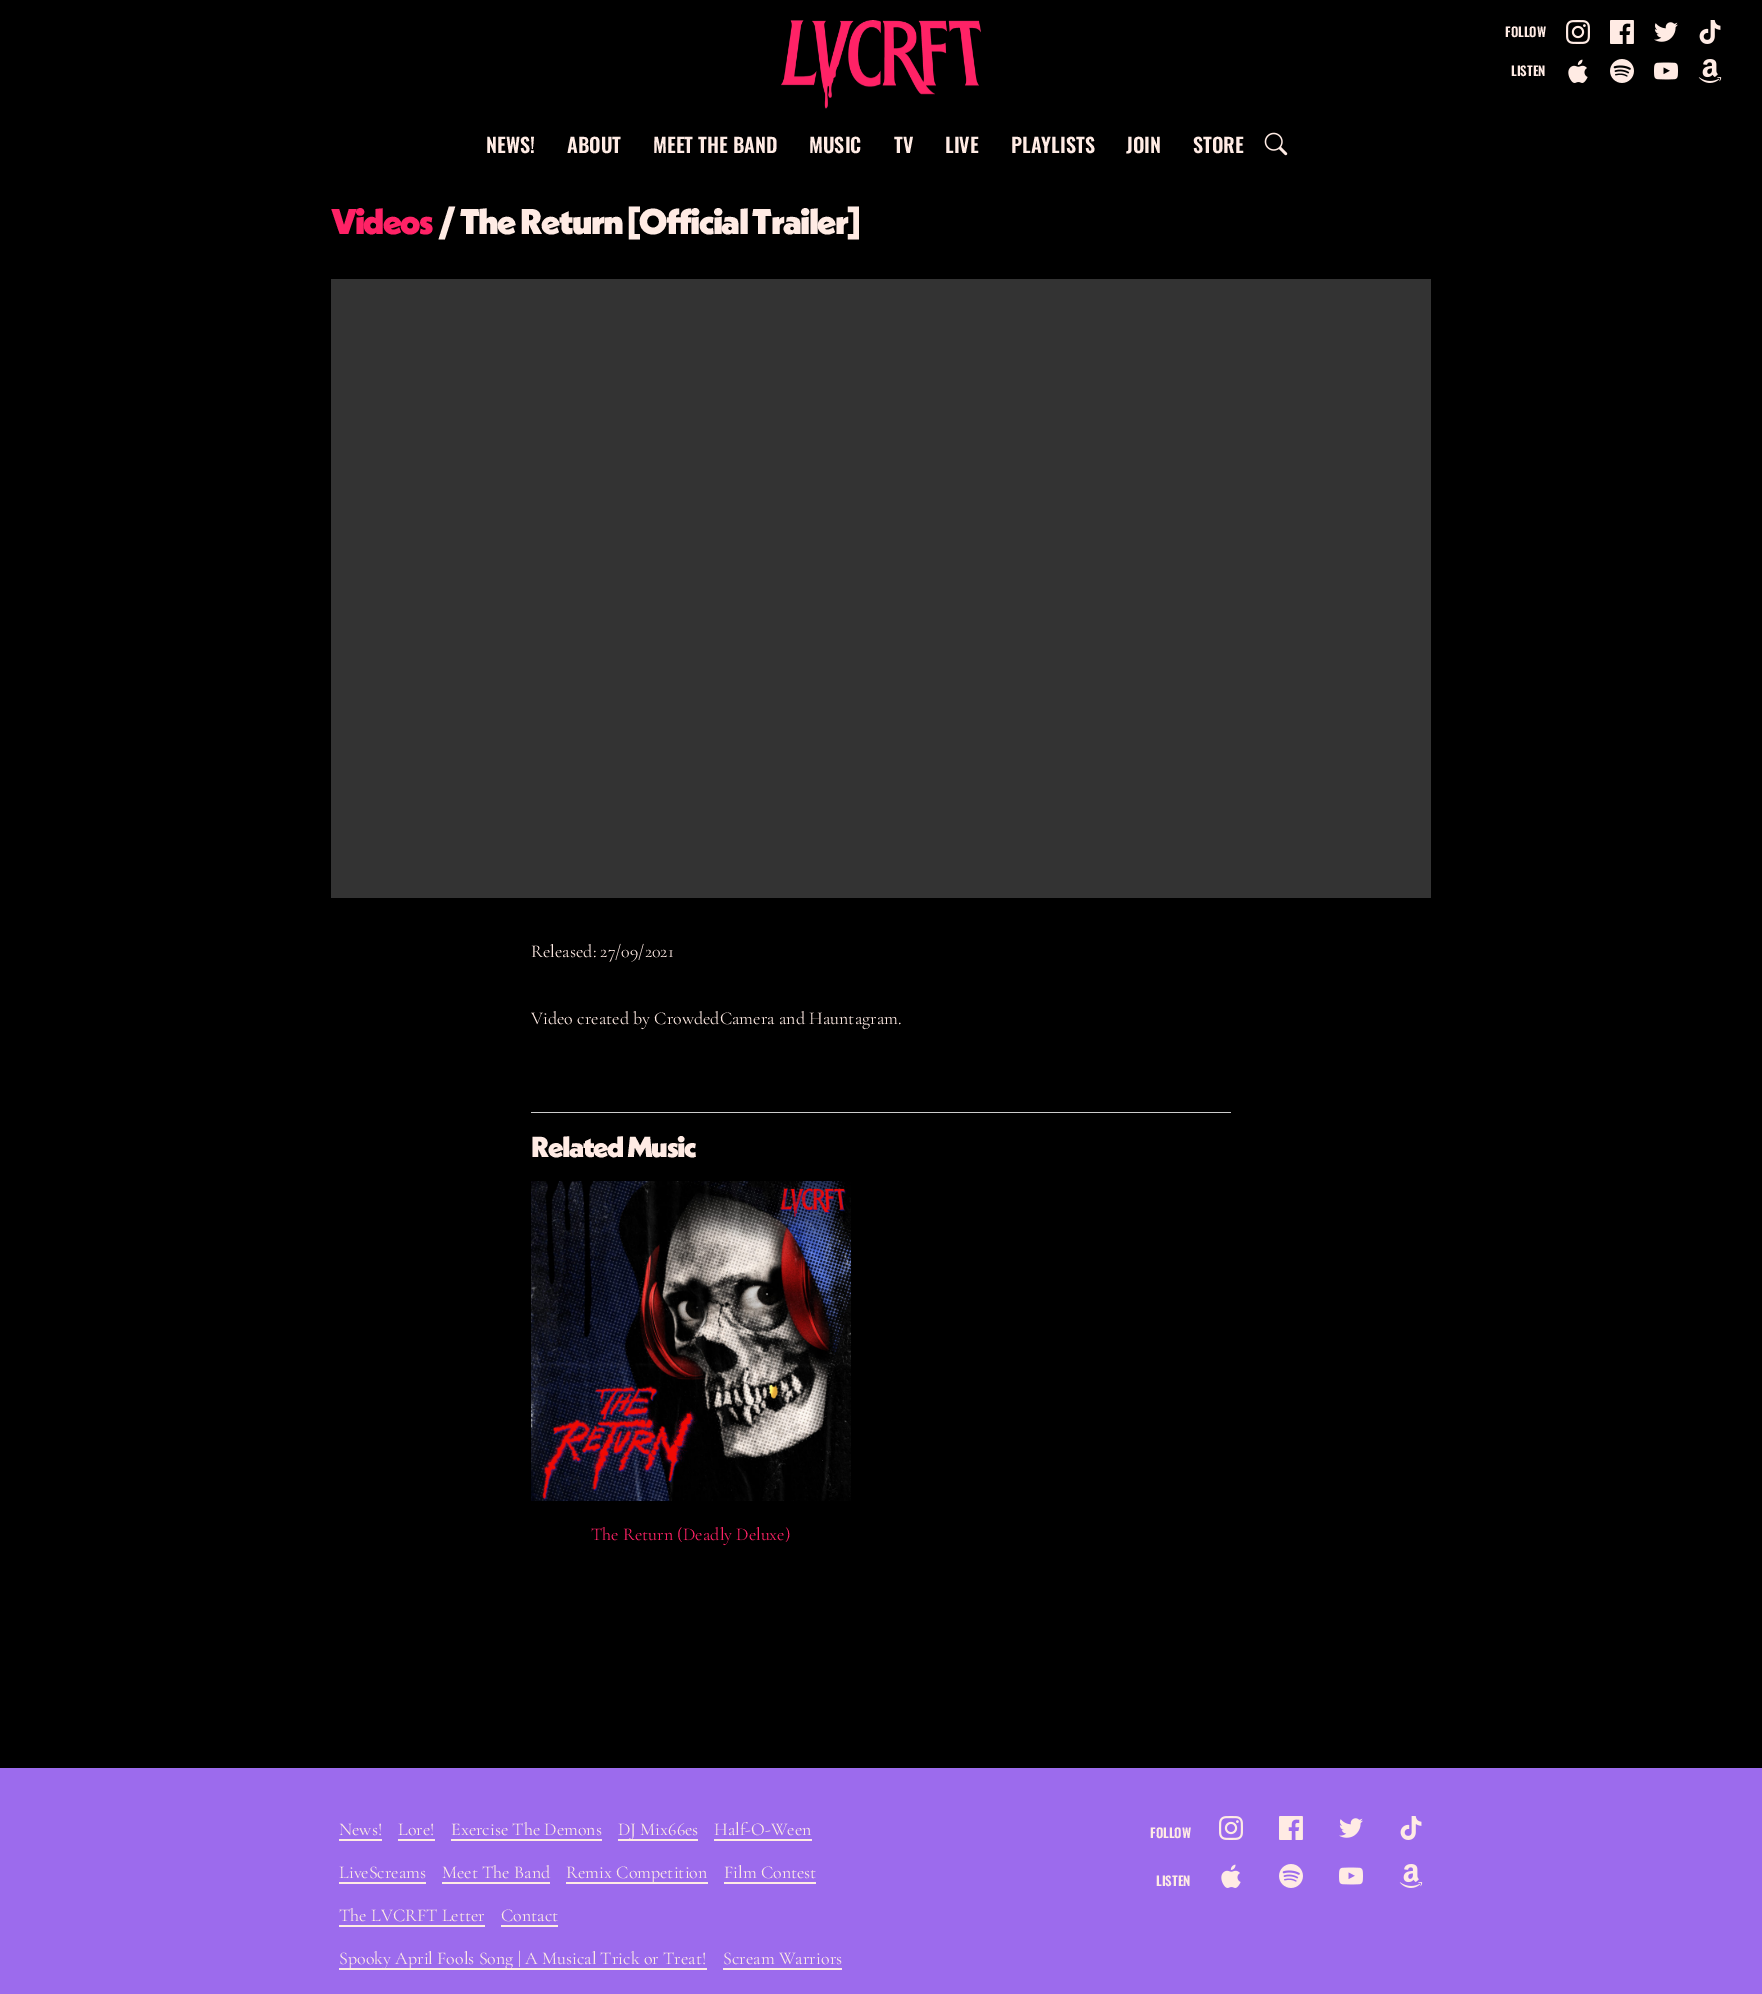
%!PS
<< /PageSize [1762 1994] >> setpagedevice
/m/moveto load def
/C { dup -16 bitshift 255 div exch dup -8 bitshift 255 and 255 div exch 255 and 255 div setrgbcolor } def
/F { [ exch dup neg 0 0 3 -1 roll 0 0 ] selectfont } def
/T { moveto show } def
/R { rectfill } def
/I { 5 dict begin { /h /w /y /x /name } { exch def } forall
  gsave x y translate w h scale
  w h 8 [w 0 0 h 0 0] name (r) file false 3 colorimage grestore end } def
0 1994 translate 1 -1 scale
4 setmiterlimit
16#000000 C
0 0 1762 1994 R
(1.rgb) 781 20 200 89 I
/Oswald-SemiBold 13 F
16#FFEBE4 C
(FOLLOW) 1505 37 T
(2.rgb) 1566 20 24 24 I
(3.rgb) 1610 20 24 24 I
(4.rgb) 1654 22 24 20 I
(5.rgb) 1699 20 22 24 I
(LISTEN) 1511 76 T
(6.rgb) 1568 59 20 24 I
(7.rgb) 1610 59 24 24 I
(8.rgb) 1654 62 24 18 I
(9.rgb) 1698 59 24 24 I
/Oswald-SemiBold 20 F
(NEWS!) 486 153 T
(ABOUT) 567 153 T
(MEET THE BAND) 653 153 T
(MUSIC) 809 153 T
(TV) 894 153 T
(LIVE) 945 153 T
(PLAYLISTS) 1011 153 T
(JOIN) 1126 153 T
(STORE) 1193 153 T
(10.rgb) 1264 132 24 24 I
/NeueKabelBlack-Black 35.8 F
16#FF2266 C
331 234 m -2 0 (Videos) ashow
16#FFEBE4 C
438 234 m -2 0 (/) ashow
460 234 m -1.5 0 (The Return [Official Trailer]) ashow
16#333333 C
331 279 1100 619 R
/CormorantGaramond-Regular 18 F
16#FFEBE4 C
(Released: 27/09/2021) 531 957 T
(Video created by CrowdedCamera and Hauntagram.) 531 1024 T
16#CCCCCC C
531 1112 700 1 R
/NeueKabelBlack-Black 29 F
16#FFEBE4 C
531 1157 m -1.4 0 (Related Music) ashow
(11.rgb) 531 1181 320 320 I
/CormorantGaramond-Regular 18 F
16#FF2266 C
(The Return \(Deadly Deluxe\)) 591 1540 T
16#9C6BED C
0 1768 1762 226 R
16#FFEBE4 C
(News!) 339 1835 T
339 1839 43 2 R
(Lore!) 398 1835 T
398 1839 37 2 R
(Exercise The Demons) 451 1835 T
451 1839 151 2 R
618 1839 80 2 R
(DJ Mix66es) 618 1835 T
(Half-O-Ween) 714 1835 T
714 1839 98 2 R
(LiveScreams) 339 1878 T
339 1882 87 2 R
(Meet The Band) 442 1878 T
442 1882 108 2 R
566 1882 142 2 R
(Remix Competition) 566 1878 T
(Film Contest) 724 1878 T
724 1882 92 2 R
(The LVCRFT Letter) 339 1921 T
339 1925 146 2 R
(Contact) 501 1921 T
501 1925 57 2 R
339 1968 368 2 R
(Spooky April Fools Song | A Musical Trick or Treat!) 339 1964 T
(Scream Warriors) 723 1964 T
723 1968 119 2 R
/Oswald-SemiBold 13 F
(FOLLOW) 1150 1838 T
(12.rgb) 1219 1816 24 24 I
(13.rgb) 1279 1816 24 24 I
(14.rgb) 1339 1818 24 20 I
(15.rgb) 1400 1816 22 24 I
(LISTEN) 1156 1886 T
(16.rgb) 1221 1864 20 24 I
(17.rgb) 1279 1864 24 24 I
(18.rgb) 1339 1867 24 18 I
(19.rgb) 1399 1864 24 24 I
showpage
